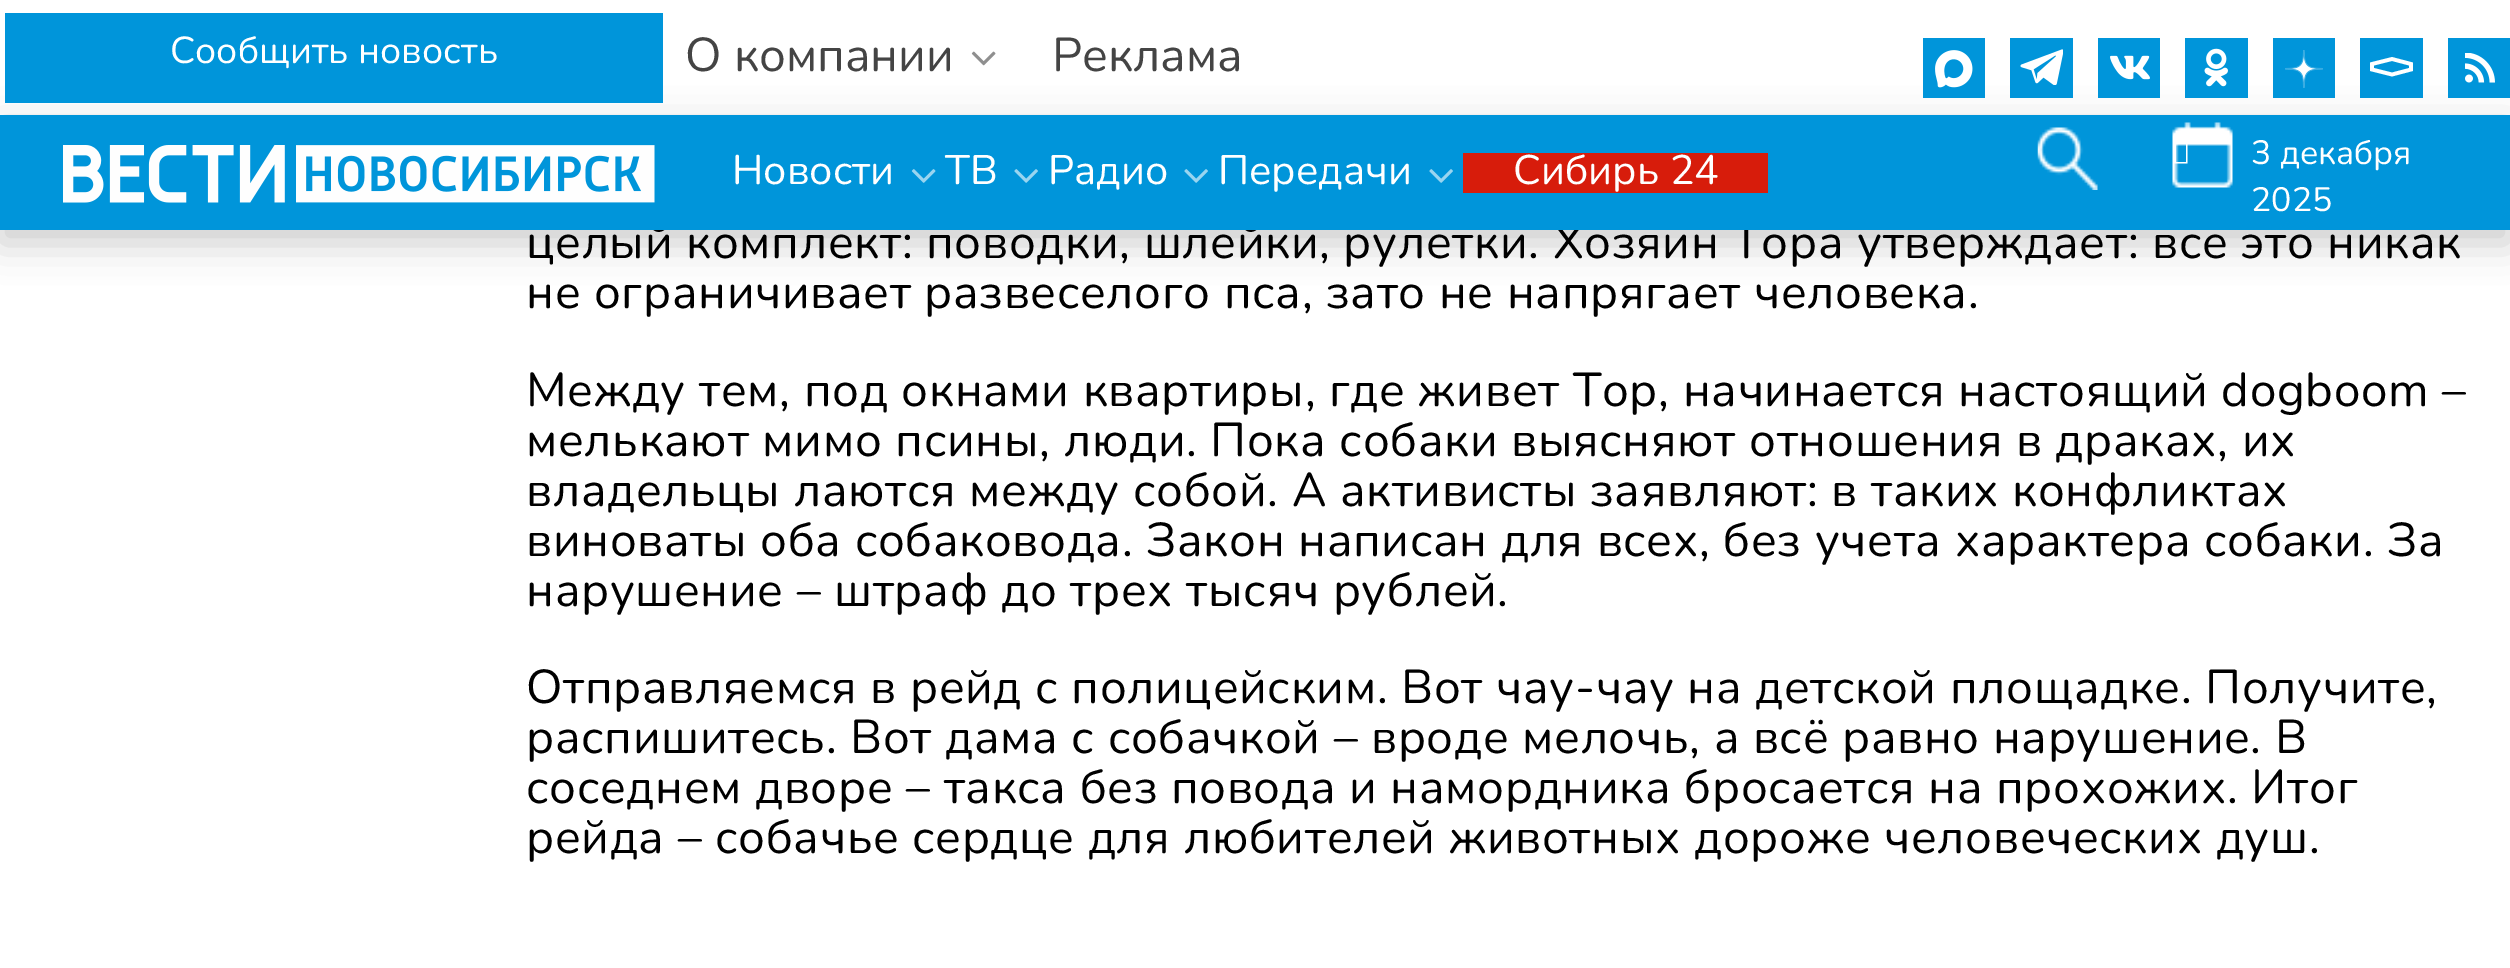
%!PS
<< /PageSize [2510 968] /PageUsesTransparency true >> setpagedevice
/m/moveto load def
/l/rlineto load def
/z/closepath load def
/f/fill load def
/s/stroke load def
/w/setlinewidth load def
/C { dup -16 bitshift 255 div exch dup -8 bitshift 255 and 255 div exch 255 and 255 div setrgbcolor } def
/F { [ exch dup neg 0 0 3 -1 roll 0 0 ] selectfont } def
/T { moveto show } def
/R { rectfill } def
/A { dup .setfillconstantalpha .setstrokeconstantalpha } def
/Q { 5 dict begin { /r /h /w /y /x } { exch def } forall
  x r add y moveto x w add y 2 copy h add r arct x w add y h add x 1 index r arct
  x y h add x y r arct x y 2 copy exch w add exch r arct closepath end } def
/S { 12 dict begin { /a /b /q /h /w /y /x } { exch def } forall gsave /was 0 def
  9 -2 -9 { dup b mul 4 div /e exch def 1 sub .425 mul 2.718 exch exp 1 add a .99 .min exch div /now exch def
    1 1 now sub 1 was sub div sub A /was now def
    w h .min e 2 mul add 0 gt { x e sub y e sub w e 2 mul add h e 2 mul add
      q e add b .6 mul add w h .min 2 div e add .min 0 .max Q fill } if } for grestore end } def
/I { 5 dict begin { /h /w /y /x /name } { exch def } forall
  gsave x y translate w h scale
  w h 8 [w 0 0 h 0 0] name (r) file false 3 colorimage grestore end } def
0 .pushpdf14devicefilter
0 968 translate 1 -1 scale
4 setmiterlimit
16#FFFFFF C
0 0 2510 968 R
16#000000 C
0 128 2510 115 0 19 .2 S
16#0095DA C
5 13 658 90 R
/Nunito-Regular 37.5 F
16#FFFFFF C
(Сообщить новость) 170 63 T
/Nunito-Regular 47.5 F
16#444444 C
(О компании) 685 71 T
(1.rgb) 971 51 25 15 I
(Реклама) 1052 71 T
16#0095DA C
1923 38 62 60 R
(2.rgb) 1935 50 38 38 I
2010 38 63 60 R
(3.rgb) 2020 49 43 36 I
2098 38 62 60 R
(4.rgb) 2110 55 40 25 I
2185 38 63 60 R
(5.rgb) 2204 48 24 39 I
2273 38 62 60 R
(6.rgb) 2285 50 38 38 I
2360 38 63 60 R
16#FFFFFF C
3.7 w
2372 69.5 m 0 -5.5 l 20 -5 l 19 5 l 0 5.5 l -19 5 l z s
16#0095DA C
2448 38 62 60 R
(7.rgb) 2465 53 30 30 I
16#000000 C
526 258 m .68 0 (целый комплект: поводки, шлейки, рулетки. Хозяин Тора утверждает: всё это никак) ashow
16#0095DA C
0 115 2510 115 R
(8.rgb) 63 145 592 58 I
/Nunito-Regular 41.25 F
16#FFFFFF C
(Новости) 732 184 T
(9.rgb) 911 169 25 14 I
(ТВ) 945 184 T
(10.rgb) 1014 169 24 14 I
(Радио) 1048 184 T
(10.rgb) 1184 169 24 14 I
(Передачи) 1218 184 T
(10.rgb) 1429 169 24 14 I
16#D71C0B C
1463 153 305 40 R
16#FFFFFF C
(Сибирь 24) 1513 184 T
(11.rgb) 2037 127 61 63 I
(12.rgb) 2172 122 61 66 I
2174 163.5 m 0 -30 l 13.5 0 l 0 30 l z 2176 162 m 10 0 l 0 -26.5 l -10 0 l z f
/Nunito-Regular 33.75 F
(3 декабря) 2251 164 T
(2025) 2251 211 T
/Nunito-Regular 47.5 F
16#000000 C
526 308 m .68 0 (не ограничивает развеселого пса, зато не напрягает человека.) ashow
526 406 m .68 0 (Между тем, под окнами квартиры, где живет Тор, начинается настоящий dogboom –) ashow
526 456 m .68 0 (мелькают мимо псины, люди. Пока собаки выясняют отношения в драках, их) ashow
526 506 m .68 0 (владельцы лаются между собой. А активисты заявляют: в таких конфликтах) ashow
526 556 m .68 0 (виноваты оба собаковода. Закон написан для всех, без учета характера собаки. За) ashow
526 606 m .68 0 (нарушение – штраф до трех тысяч рублей.) ashow
526 703 m .68 0 (Отправляемся в рейд с полицейским. Вот чау-чау на детской площадке. Получите,) ashow
526 753 m .68 0 (распишитесь. Вот дама с собачкой – вроде мелочь, а всё равно нарушение. В) ashow
526 803 m .68 0 (соседнем дворе – такса без повода и намордника бросается на прохожих. Итог) ashow
526 853 m .68 0 (рейда – собачье сердце для любителей животных дороже человеческих душ.) ashow
.poppdf14devicefilter showpage
